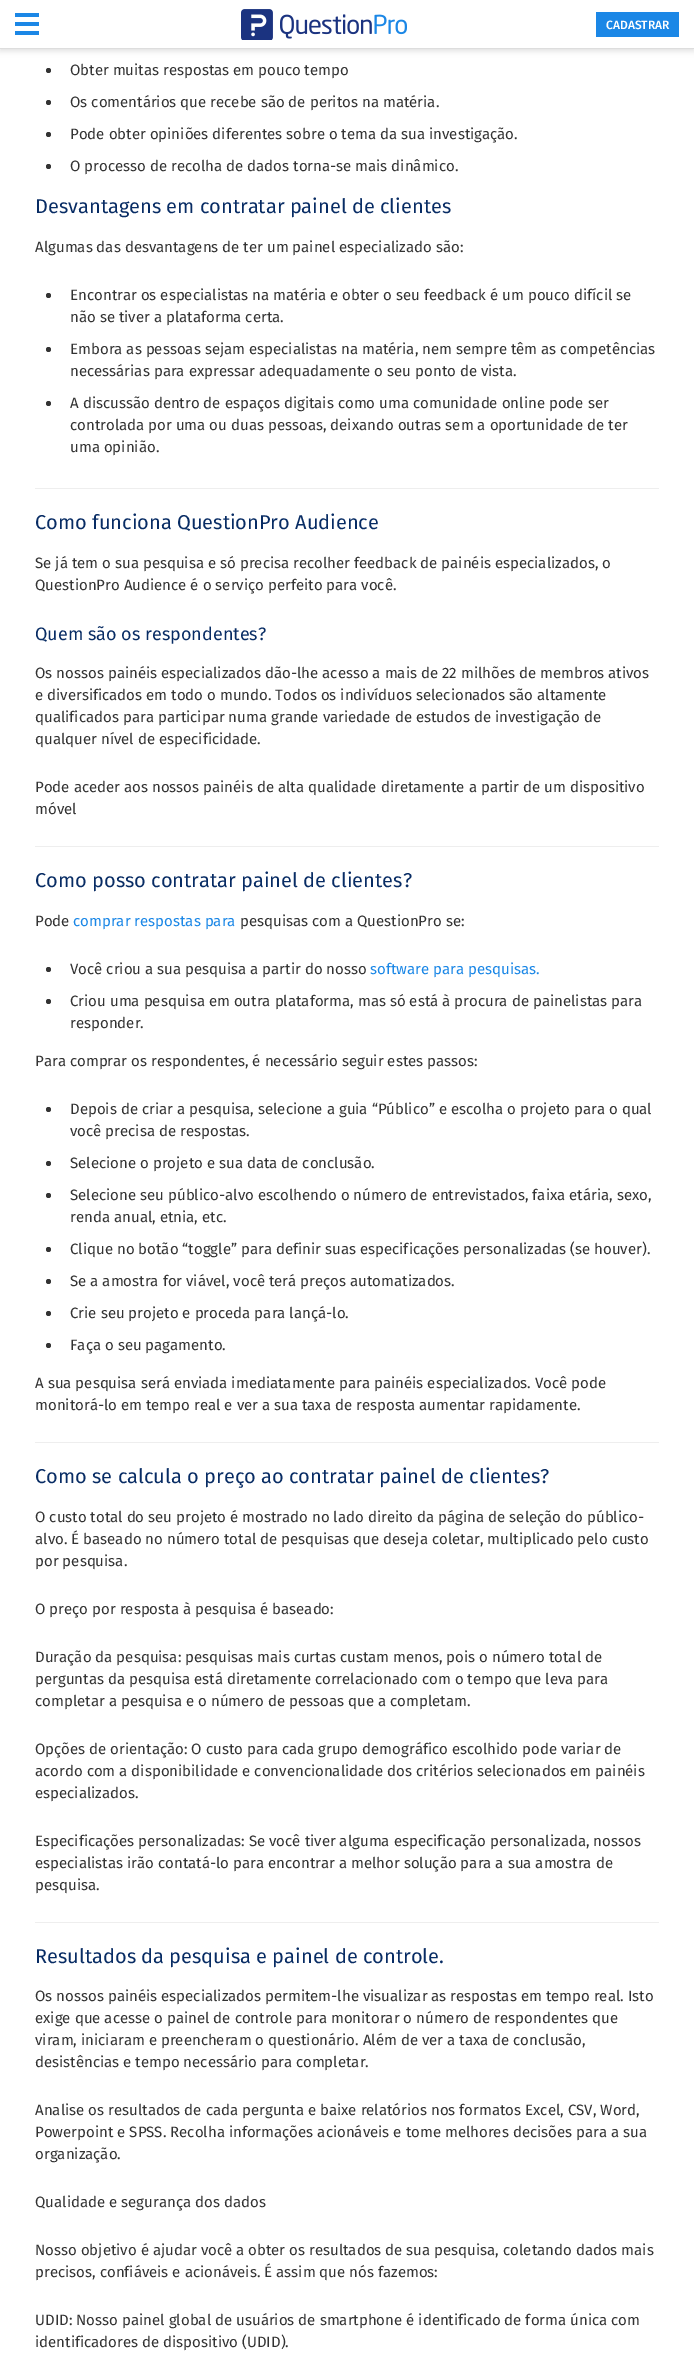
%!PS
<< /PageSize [694 2362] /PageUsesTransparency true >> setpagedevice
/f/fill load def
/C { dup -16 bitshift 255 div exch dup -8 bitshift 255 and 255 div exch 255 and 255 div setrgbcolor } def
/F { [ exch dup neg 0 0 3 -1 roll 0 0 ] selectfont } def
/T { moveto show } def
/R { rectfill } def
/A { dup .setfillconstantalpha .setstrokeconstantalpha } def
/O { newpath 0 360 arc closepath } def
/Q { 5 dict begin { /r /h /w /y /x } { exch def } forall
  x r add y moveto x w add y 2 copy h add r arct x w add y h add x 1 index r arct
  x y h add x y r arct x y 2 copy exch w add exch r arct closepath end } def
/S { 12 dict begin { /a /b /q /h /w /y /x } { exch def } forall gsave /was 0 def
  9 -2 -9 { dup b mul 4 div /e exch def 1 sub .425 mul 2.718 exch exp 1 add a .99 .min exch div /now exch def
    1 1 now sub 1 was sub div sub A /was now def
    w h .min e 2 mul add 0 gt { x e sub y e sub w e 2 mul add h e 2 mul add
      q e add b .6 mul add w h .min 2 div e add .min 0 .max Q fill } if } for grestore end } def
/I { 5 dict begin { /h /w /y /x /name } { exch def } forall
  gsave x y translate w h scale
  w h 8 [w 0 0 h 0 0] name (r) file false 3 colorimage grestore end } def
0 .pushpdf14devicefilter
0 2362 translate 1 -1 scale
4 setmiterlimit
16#FFFFFF C
0 0 694 2362 R
16#000000 C
0 2 694 49 0 3 .12 S
16#FFFFFF C
0 0 694 48 R
16#1B87E6 C
15 13 24 4 R
15 22 24 4 R
15 31 24 4 R
(1.rgb) 241 9 166 31 I
596 12 83 25 R
/FiraSans-Medium 12 F
16#FFFFFF C
(CADASTRAR) 606 29 T
16#DDDDDD C
0 48 694 1 R
16#333333 C
48.5 70.5 2.5 O f
/FiraSans-Regular 15 F
(Obter muitas respostas em pouco tempo) 70 75 T
48.5 102.5 2.5 O f
(Os comentários que recebe são de peritos na matéria.) 70 107 T
48.5 134.5 2.5 O f
(Pode obter opiniões diferentes sobre o tema da sua investigação.) 70 139 T
48.5 166.5 2.5 O f
(O processo de recolha de dados torna-se mais dinâmico.) 70 171 T
/FiraSans-Regular 20 F
16#082C64 C
(Desvantagens em contratar painel de clientes) 35 213 T
/FiraSans-Regular 15 F
16#333333 C
(Algumas das desvantagens de ter um painel especializado são:) 35 252 T
48.5 295.5 2.5 O f
(Encontrar os especialistas na matéria e obter o seu feedback é um pouco difícil se) 70 300 T
(não se tiver a plataforma certa.) 70 322 T
48.5 349.5 2.5 O f
(Embora as pessoas sejam especialistas na matéria, nem sempre têm as competências) 70 354 T
(necessárias para expressar adequadamente o seu ponto de vista.) 70 376 T
48.5 403.5 2.5 O f
(A discussão dentro de espaços digitais como uma comunidade online pode ser) 70 408 T
(controlada por uma ou duas pessoas, deixando outras sem a oportunidade de ter) 70 430 T
(uma opinião.) 70 452 T
16#EEEEEE C
35 488 624 1 R
/FiraSans-Regular 20 F
16#082C64 C
(Como funciona QuestionPro Audience) 35 529 T
/FiraSans-Regular 15 F
16#333333 C
(Se já tem o sua pesquisa e só precisa recolher feedback de painéis especializados, o) 35 568 T
(QuestionPro Audience é o serviço perfeito para você.) 35 590 T
/FiraSans-Regular 18 F
16#082C64 C
(Quem são os respondentes?) 35 640 T
/FiraSans-Regular 15 F
16#333333 C
(Os nossos painéis especializados dão-lhe acesso a mais de 22 milhões de membros ativos) 35 678 T
(e diversificados em todo o mundo. Todos os indivíduos selecionados são altamente) 35 700 T
(qualificados para participar numa grande variedade de estudos de investigação de) 35 722 T
(qualquer nível de especificidade.) 35 744 T
(Pode aceder aos nossos painéis de alta qualidade diretamente a partir de um dispositivo) 35 792 T
(móvel) 35 814 T
16#EEEEEE C
35 846 624 1 R
/FiraSans-Regular 20 F
16#082C64 C
(Como posso contratar painel de clientes?) 35 887 T
/FiraSans-Regular 15 F
16#333333 C
(Pode) 35 926 T
16#1B87E6 C
(comprar respostas para) 73 926 T
16#333333 C
(pesquisas com a QuestionPro se:) 240 926 T
48.5 969.5 2.5 O f
(Você criou a sua pesquisa a partir do nosso) 70 974 T
16#1B87E6 C
(software para pesquisas.) 370 974 T
16#333333 C
48.5 1001.5 2.5 O f
(Criou uma pesquisa em outra plataforma, mas só está à procura de painelistas para) 70 1006 T
(responder.) 70 1028 T
(Para comprar os respondentes, é necessário seguir estes passos:) 35 1066 T
48.5 1109.5 2.5 O f
(Depois de criar a pesquisa, selecione a guia “Público” e escolha o projeto para o qual) 70 1114 T
(você precisa de respostas.) 70 1136 T
48.5 1163.5 2.5 O f
(Selecione o projeto e sua data de conclusão.) 70 1168 T
48.5 1195.5 2.5 O f
(Selecione seu público-alvo escolhendo o número de entrevistados, faixa etária, sexo,) 70 1200 T
(renda anual, etnia, etc.) 70 1222 T
48.5 1249.5 2.5 O f
(Clique no botão “toggle” para definir suas especificações personalizadas \(se houver\).) 70 1254 T
48.5 1281.5 2.5 O f
(Se a amostra for viável, você terá preços automatizados.) 70 1286 T
48.5 1313.5 2.5 O f
(Crie seu projeto e proceda para lançá-lo.) 70 1318 T
48.5 1345.5 2.5 O f
(Faça o seu pagamento.) 70 1350 T
(A sua pesquisa será enviada imediatamente para painéis especializados. Você pode) 35 1388 T
(monitorá-lo em tempo real e ver a sua taxa de resposta aumentar rapidamente.) 35 1410 T
16#EEEEEE C
35 1442 624 1 R
/FiraSans-Regular 20 F
16#082C64 C
(Como se calcula o preço ao contratar painel de clientes?) 35 1483 T
/FiraSans-Regular 15 F
16#333333 C
(O custo total do seu projeto é mostrado no lado direito da página de seleção do público-) 35 1522 T
(alvo. É baseado no número total de pesquisas que deseja coletar, multiplicado pelo custo) 35 1544 T
(por pesquisa.) 35 1566 T
(O preço por resposta à pesquisa é baseado:) 35 1614 T
(Duração da pesquisa: pesquisas mais curtas custam menos, pois o número total de) 35 1662 T
(perguntas da pesquisa está diretamente correlacionado com o tempo que leva para) 35 1684 T
(completar a pesquisa e o número de pessoas que a completam.) 35 1706 T
(Opções de orientação: O custo para cada grupo demográfico escolhido pode variar de) 35 1754 T
(acordo com a disponibilidade e convencionalidade dos critérios selecionados em painéis) 35 1776 T
(especializados.) 35 1798 T
(Especificações personalizadas: Se você tiver alguma especificação personalizada, nossos) 35 1846 T
(especialistas irão contatá-lo para encontrar a melhor solução para a sua amostra de) 35 1868 T
(pesquisa.) 35 1890 T
16#EEEEEE C
35 1922 624 1 R
/FiraSans-Regular 20 F
16#082C64 C
(Resultados da pesquisa e painel de controle.) 35 1963 T
/FiraSans-Regular 15 F
16#333333 C
(Os nossos painéis especializados permitem-lhe visualizar as respostas em tempo real. Isto) 35 2001 T
(exige que acesse o painel de controle para monitorar o número de respondentes que) 35 2023 T
(viram, iniciaram e preencheram o questionário. Além de ver a taxa de conclusão,) 35 2045 T
(desistências e tempo necessário para completar.) 35 2067 T
(Analise os resultados de cada pergunta e baixe relatórios nos formatos Excel, CSV, Word,) 35 2115 T
(Powerpoint e SPSS. Recolha informações acionáveis e tome melhores decisões para a sua) 35 2137 T
(organização.) 35 2159 T
(Qualidade e segurança dos dados) 35 2207 T
(Nosso objetivo é ajudar você a obter os resultados de sua pesquisa, coletando dados mais) 35 2255 T
(precisos, confiáveis e acionáveis. É assim que nós fazemos:) 35 2277 T
(UDID: Nosso painel global de usuários de smartphone é identificado de forma única com) 35 2325 T
(identificadores de dispositivo \(UDID\).) 35 2347 T
.poppdf14devicefilter showpage
